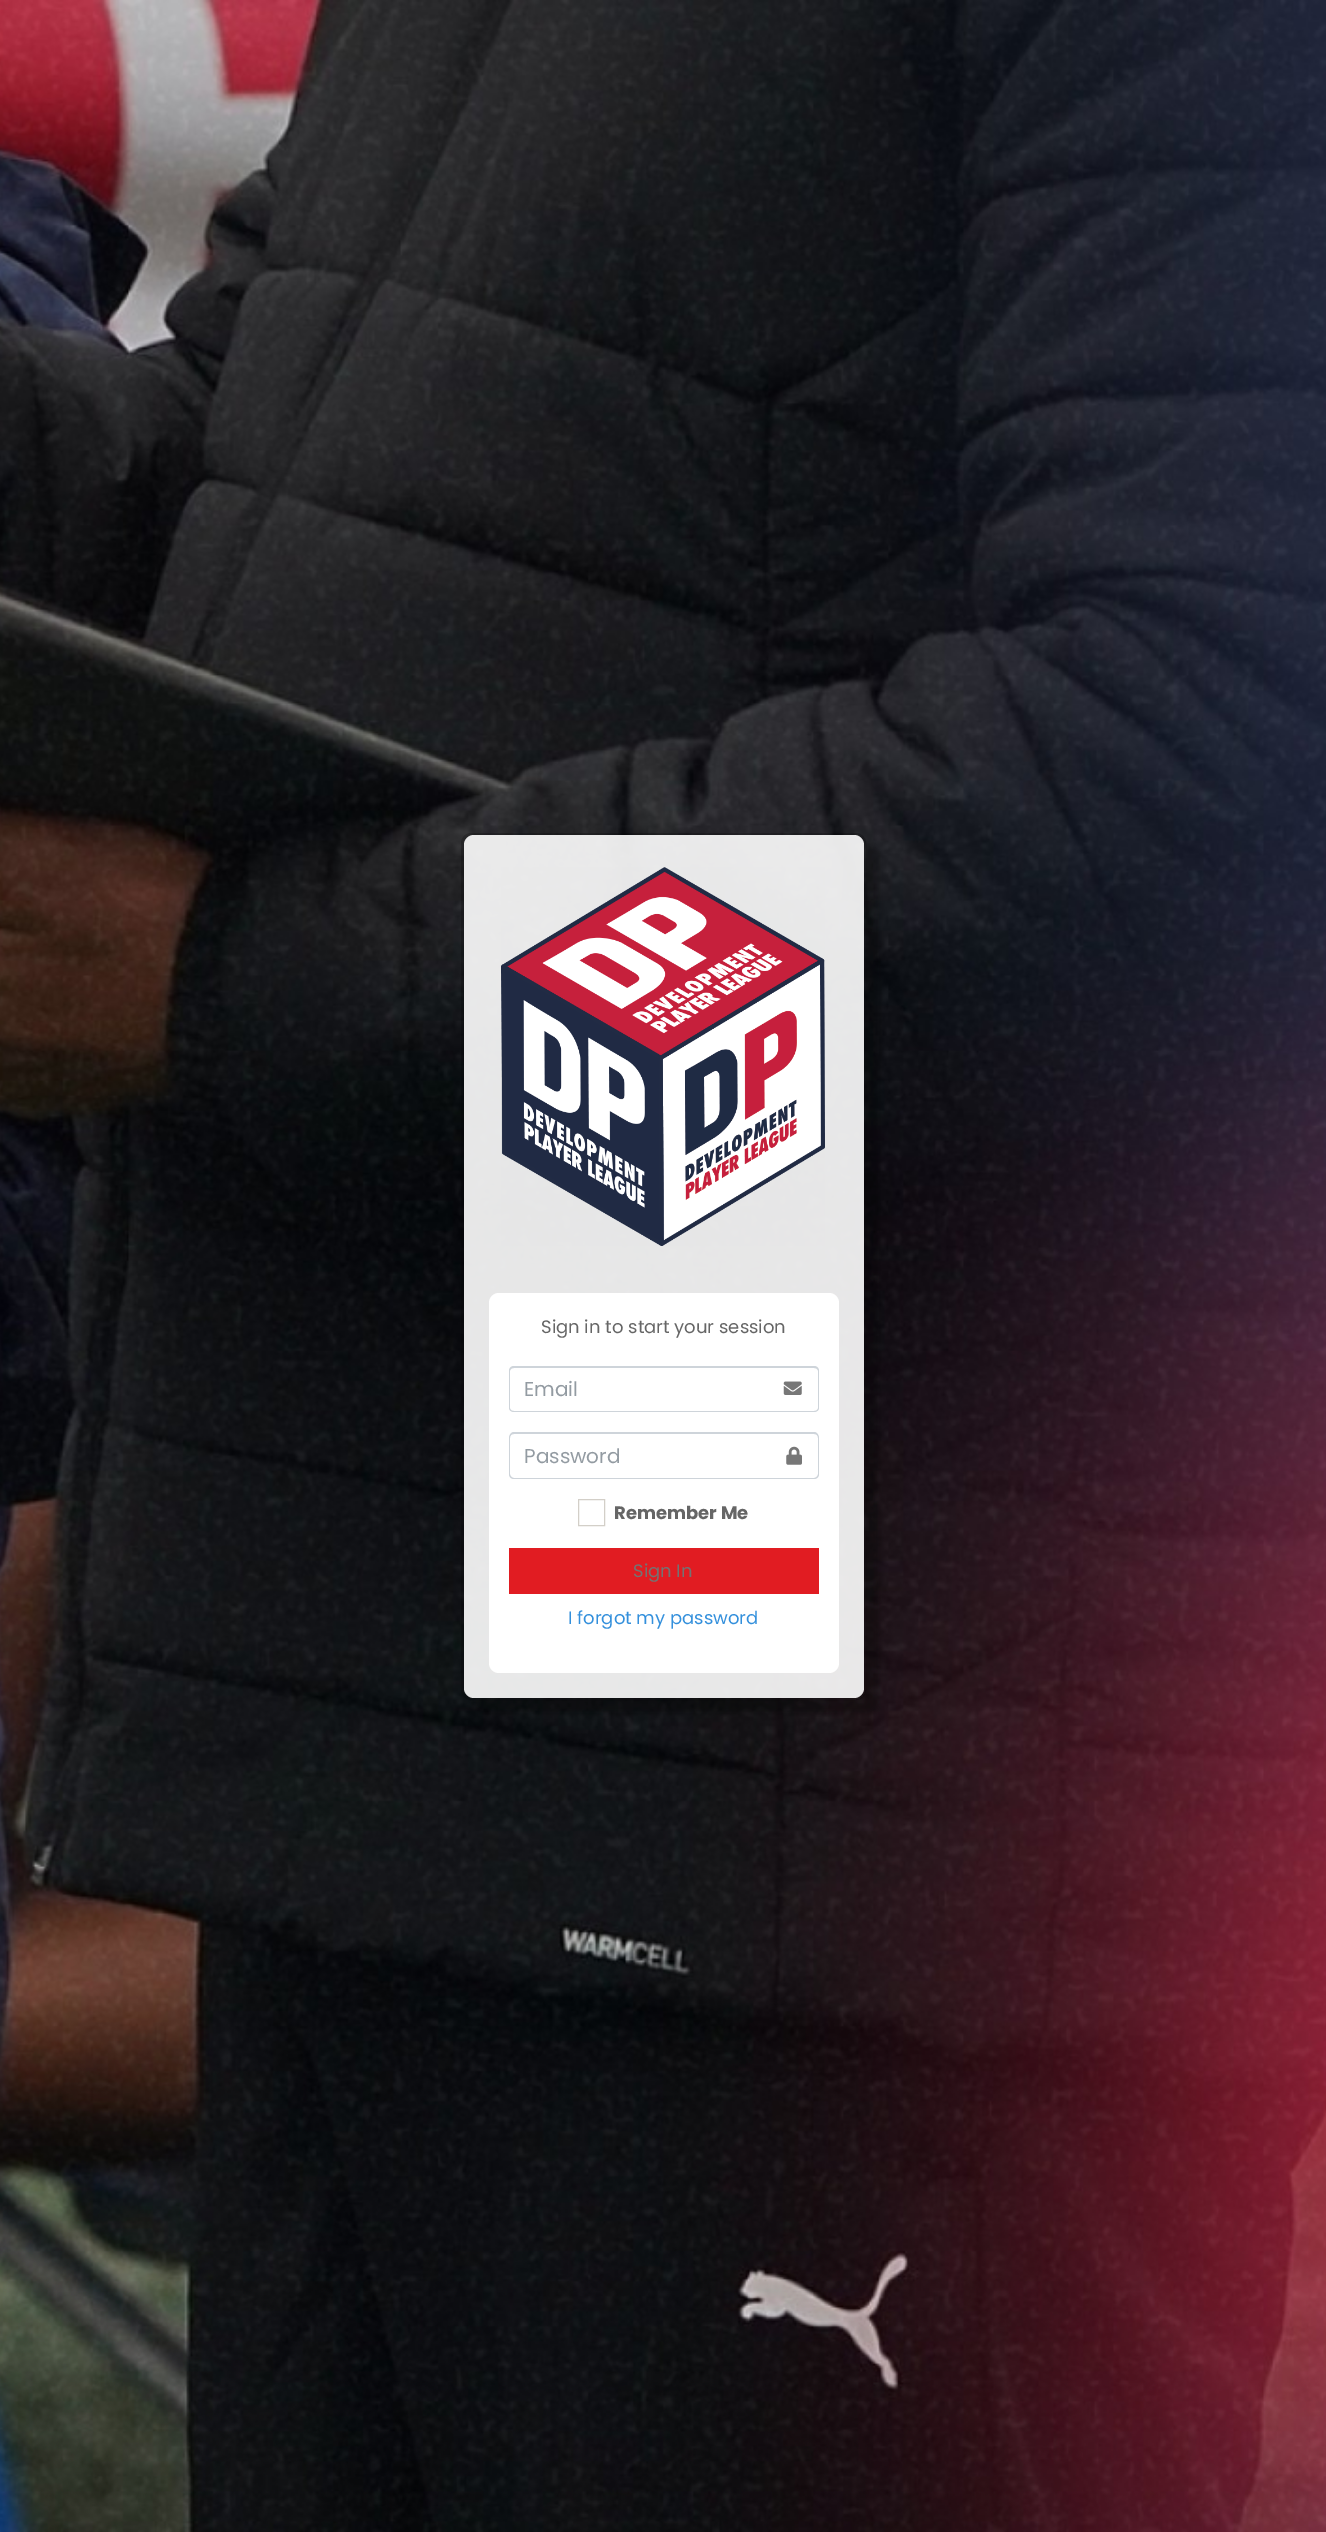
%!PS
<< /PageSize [1326 2532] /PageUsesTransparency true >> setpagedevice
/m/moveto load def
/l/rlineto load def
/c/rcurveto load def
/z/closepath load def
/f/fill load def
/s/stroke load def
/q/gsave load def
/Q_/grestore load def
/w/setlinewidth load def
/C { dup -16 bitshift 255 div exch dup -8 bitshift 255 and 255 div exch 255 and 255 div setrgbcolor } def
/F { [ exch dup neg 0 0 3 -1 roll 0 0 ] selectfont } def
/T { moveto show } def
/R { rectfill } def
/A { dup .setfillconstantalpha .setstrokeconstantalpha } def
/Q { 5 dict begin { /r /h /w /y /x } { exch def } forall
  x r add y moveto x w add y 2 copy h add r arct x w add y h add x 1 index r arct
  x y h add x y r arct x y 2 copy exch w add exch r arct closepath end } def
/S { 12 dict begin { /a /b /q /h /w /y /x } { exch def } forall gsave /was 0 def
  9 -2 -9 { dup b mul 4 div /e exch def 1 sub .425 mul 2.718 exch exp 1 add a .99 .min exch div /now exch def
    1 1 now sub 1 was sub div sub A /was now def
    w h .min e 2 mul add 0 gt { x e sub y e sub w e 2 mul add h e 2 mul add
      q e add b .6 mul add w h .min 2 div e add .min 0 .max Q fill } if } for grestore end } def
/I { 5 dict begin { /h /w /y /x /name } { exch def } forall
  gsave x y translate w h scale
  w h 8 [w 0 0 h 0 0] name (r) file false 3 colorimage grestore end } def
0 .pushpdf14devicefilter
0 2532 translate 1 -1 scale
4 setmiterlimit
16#FFFFFF C
0 0 1326 2532 R
(1.rgb) 0 0 1326 2532 I
q
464 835 m 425 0 l 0 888 l -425 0 l z 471 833 m 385 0 l 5.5 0 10 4.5 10 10 c 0 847 l 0 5.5 -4.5 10 -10 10 c -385 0 l -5.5 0 -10 -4.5 -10 -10 c 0 -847 l 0 -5.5 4.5 -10 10 -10 c z eoclip newpath
16#000000 C
474 845 405 868 10 3 .31 S
Q_
0.2 A
16#000000 C
3 w
462.5 834.5 402 864 8.5 Q s
0.9 A
16#FFFFFF C
464 835 400 863 10 Q f
1 A
(2.rgb) 501 867 324 379 I
489 1293 350 380 10 Q f
/Poppins-Regular 18 F
16#666666 C
(Sign in to start your session) 541 1333 T
16#CED4DA C
769 1366 m 45 0 l 3 0 5 2 5 5 c 0 37 l 0 2 -2 4 -5 4 c -45 0 l z 769 1368 m 45 0 l 2 0 4 1 4 3 c 0 37 l 0 2 -2 3 -4 3 c -45 0 l z eofill
514 1366 m 256 0 l 0 46 l -256 0 l -3 0 -5 -2 -5 -4 c 0 -37 l 0 -3 2 -5 5 -5 c z 514 1368 m 256 0 l 0 43 l -256 0 l -2 0 -4 -1 -4 -3 c 0 -37 l 0 -2 2 -3 4 -3 c z eofill
/Poppins-Regular 20 F
16#939BA2 C
(Email) 524 1396 T
(3.rgb) 783 1381 19 14 I
16#CED4DA C
771 1432 m 43 0 l 3 0 5 3 5 6 c 0 36 l 0 3 -2 5 -5 5 c -43 0 l z 771 1434 m 43 0 l 2 0 4 1 4 4 c 0 36 l 0 2 -2 4 -4 4 c -43 0 l z eofill
514 1432 m 258 0 l 0 47 l -258 0 l -3 0 -5 -2 -5 -5 c 0 -36 l 0 -3 2 -6 5 -6 c z 514 1434 m 258 0 l 0 44 l -258 0 l -2 0 -4 -2 -4 -4 c 0 -36 l 0 -3 2 -4 4 -4 c z eofill
16#939BA2 C
(Password) 524 1463 T
(4.rgb) 786 1446 16 19 I
16#D3CFC8 C
1 w
578.5 1499.5 26 26 rectstroke
/Poppins-Bold 18 F
16#666666 C
(Remember Me) 614 1519 T
16#E11C22 C
509 1548 310 46 R
/Poppins-Regular 18 F
16#737373 C
(Sign In) 633 1577 T
16#3490DC C
(I forgot my password) 568 1624 T
.poppdf14devicefilter showpage
